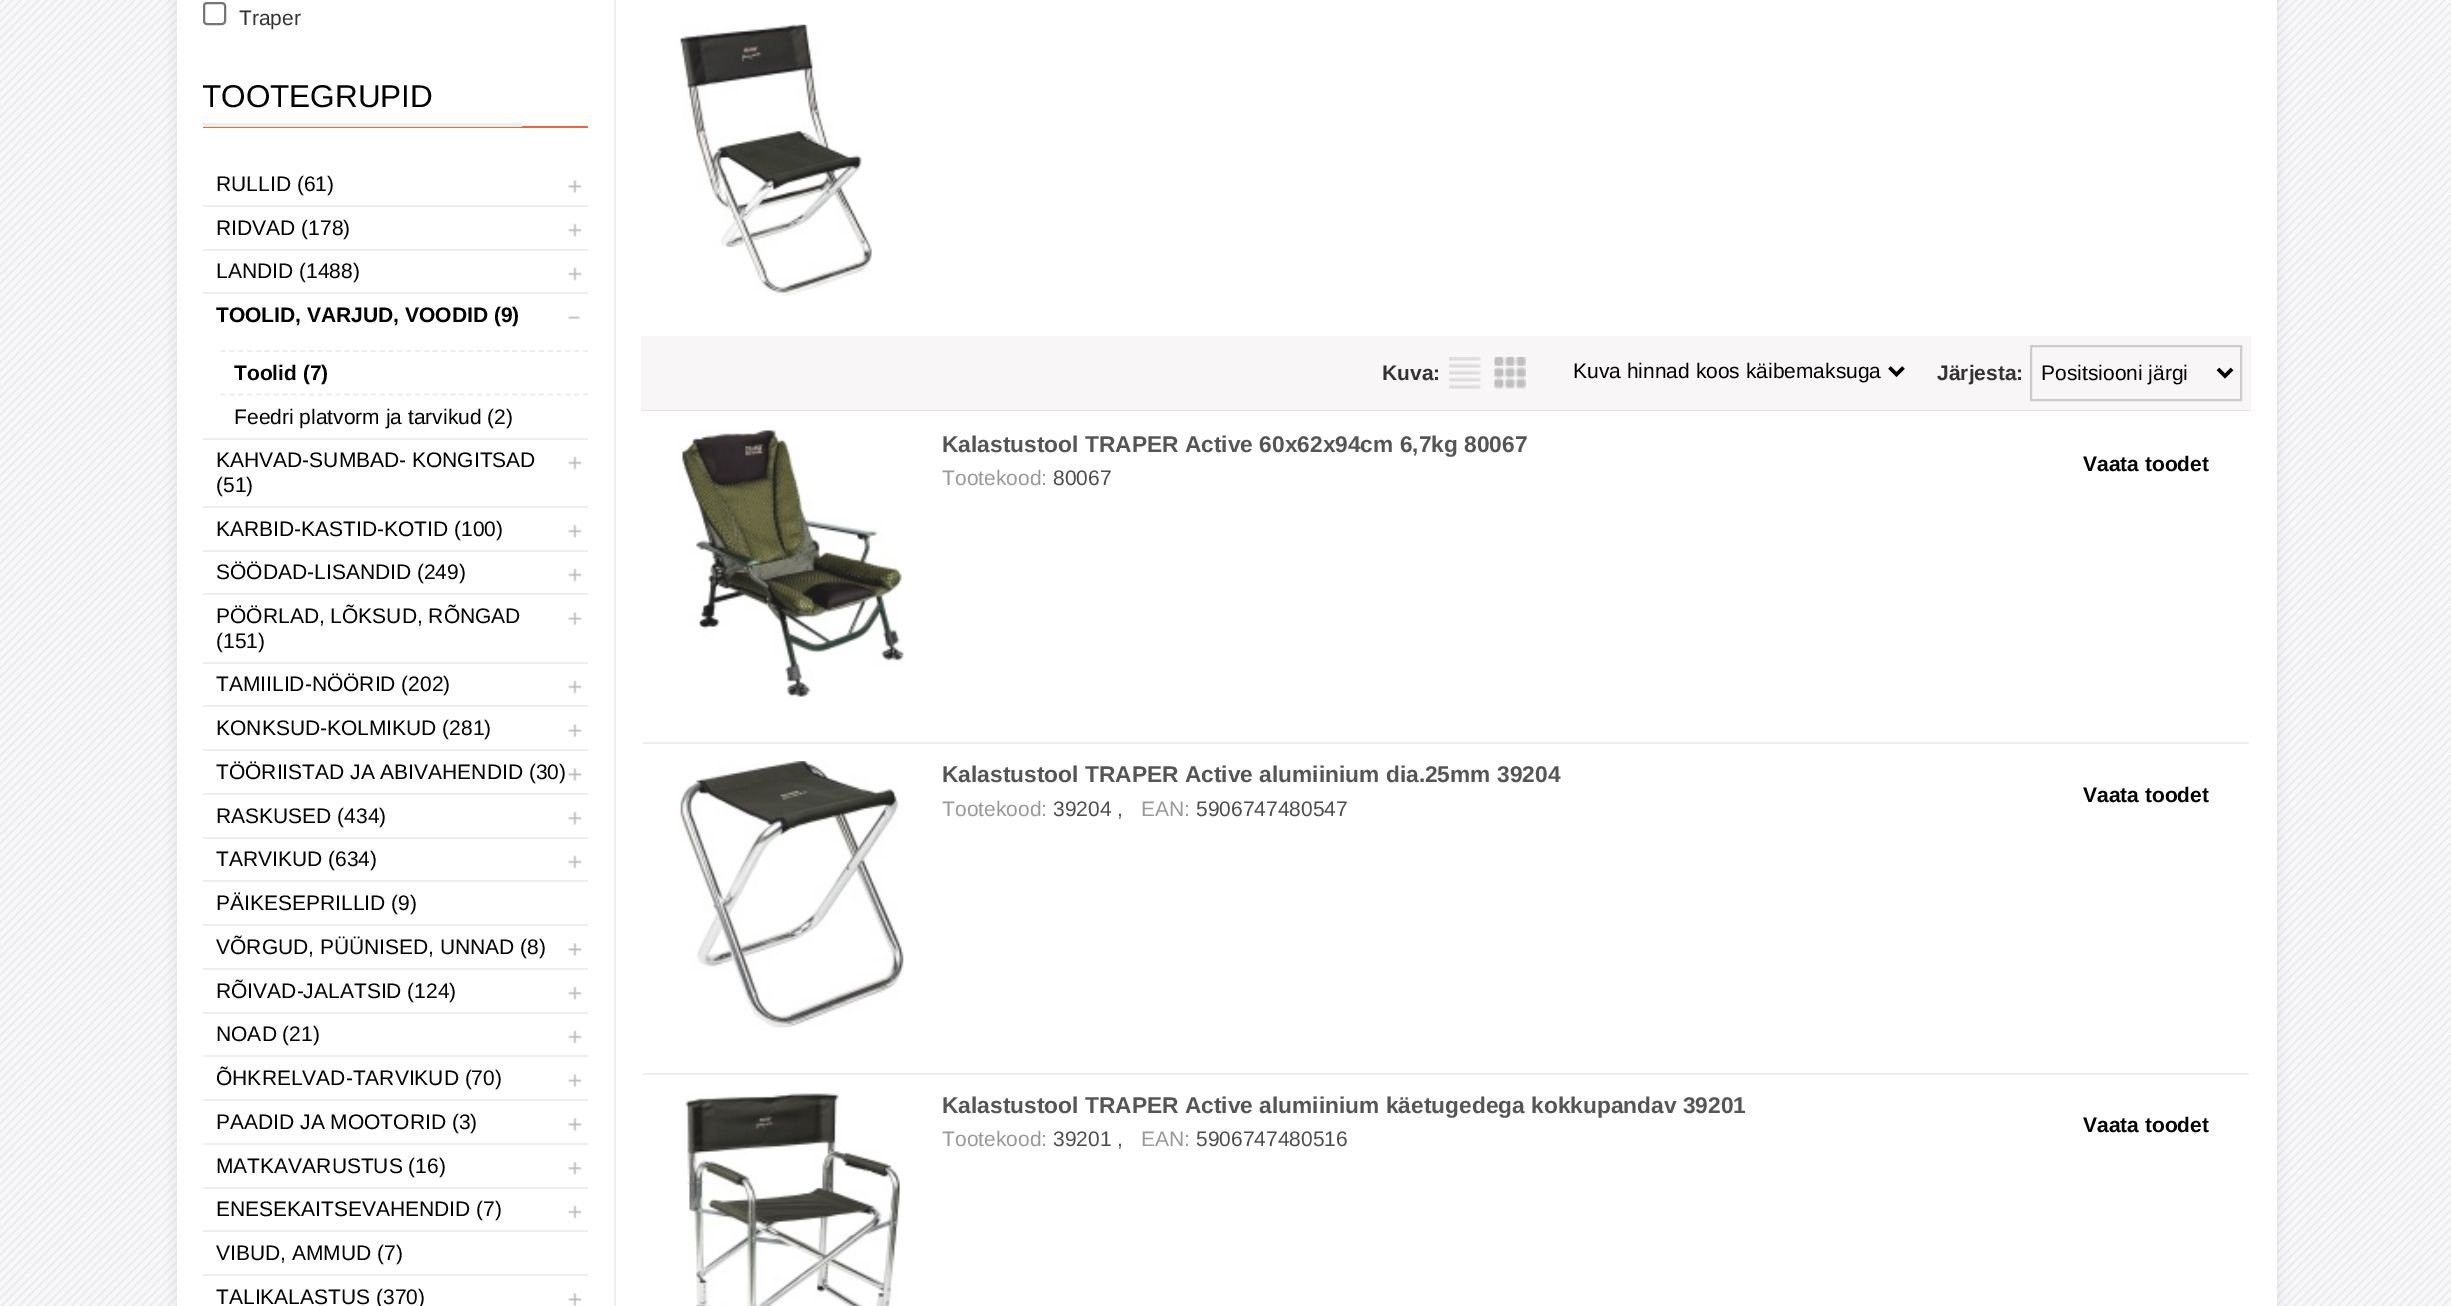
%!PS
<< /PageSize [2451 1306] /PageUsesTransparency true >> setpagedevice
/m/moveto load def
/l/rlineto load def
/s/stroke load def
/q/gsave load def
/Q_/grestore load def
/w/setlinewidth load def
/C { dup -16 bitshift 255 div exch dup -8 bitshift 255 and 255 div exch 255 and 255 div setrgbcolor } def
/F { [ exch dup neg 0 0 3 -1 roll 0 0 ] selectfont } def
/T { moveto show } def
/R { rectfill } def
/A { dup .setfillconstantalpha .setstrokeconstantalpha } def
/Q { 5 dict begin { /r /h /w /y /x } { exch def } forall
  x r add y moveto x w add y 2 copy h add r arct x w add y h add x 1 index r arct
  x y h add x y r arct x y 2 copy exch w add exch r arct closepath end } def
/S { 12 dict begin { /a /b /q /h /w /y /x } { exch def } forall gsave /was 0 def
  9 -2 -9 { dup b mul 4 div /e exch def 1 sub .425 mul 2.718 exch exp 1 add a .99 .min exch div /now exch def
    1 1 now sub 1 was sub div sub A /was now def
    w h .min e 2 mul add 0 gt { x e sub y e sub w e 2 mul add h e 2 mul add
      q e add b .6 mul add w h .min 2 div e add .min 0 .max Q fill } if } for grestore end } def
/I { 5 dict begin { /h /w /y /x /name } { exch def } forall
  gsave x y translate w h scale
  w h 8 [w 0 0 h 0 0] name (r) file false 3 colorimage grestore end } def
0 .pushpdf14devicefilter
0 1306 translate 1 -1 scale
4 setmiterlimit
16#F8F8FA C
0 0 2451 1306 R
(1.rgb) 0 0 2451 1306 I
16#000000 C
177 -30 2100 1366 9 7 .08 S
16#FFFFFF C
177 0 2100 1306 R
16#EEEEEE C
614 0 2 1306 R
16#767676 C
2 w
204 3 21 21 3 Q s
/LiberationSans-Regular 21 F
16#333333 C
(Traper) 239 25 T
16#ED643F C
203 126 385 2 R
16#EEEEEE C
203 123 319 4 R
q
203 0 2048 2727 rectclip
/LiberationSans-Regular 31.5 F
16#000000 C
(TOOTEGRUPID) 202 107 T
Q_
16#000000 C
(RULLID \(61\)) 216 191 T
(2.rgb) 568 180 14 13 I
16#EEEEEE C
203 205 385 2 R
16#000000 C
(RIDVAD \(178\)) 216 235 T
(3.rgb) 568 223 14 14 I
16#EEEEEE C
203 249 385 2 R
16#000000 C
(LANDID \(1488\)) 216 278 T
(4.rgb) 568 267 14 14 I
16#EEEEEE C
203 292 385 2 R
/LiberationSans-Bold 21 F
16#000000 C
(TOOLID, VARJUD, VOODID \(9\)) 216 322 T
(5.rgb) 568 316 13 3 I
16#EEEEEE C
1.8 w
[5.25 3.59] 0 setdash
220.5 351 m 367.5 0 l s
16#000000 C
(Toolid \(7\)) 234 380 T
16#EEEEEE C
220.5 394.5 m 367.5 0 l s
/LiberationSans-Regular 21 F
16#000000 C
(Feedri platvorm ja tarvikud \(2\)) 234 424 T
16#EEEEEE C
203 438 385 2 R
16#000000 C
(KAHVAD-SUMBAD- KONGITSAD) 216 467 T
(\(51\)) 216 492 T
(4.rgb) 568 456 14 14 I
16#EEEEEE C
203 506 385 2 R
16#000000 C
(KARBID-KASTID-KOTID \(100\)) 216 536 T
(3.rgb) 568 524 14 14 I
16#EEEEEE C
203 550 385 2 R
16#000000 C
(SÖÖDAD-LISANDID \(249\)) 216 579 T
(4.rgb) 568 568 14 14 I
16#EEEEEE C
203 593 385 2 R
16#000000 C
(PÖÖRLAD, LÕKSUD, RÕNGAD) 216 623 T
(\(151\)) 216 648 T
(6.rgb) 568 612 14 14 I
16#EEEEEE C
203 662 385 2 R
16#000000 C
(TAMIILID-NÖÖRID \(202\)) 216 691 T
(4.rgb) 568 680 14 14 I
16#EEEEEE C
203 705 385 2 R
16#000000 C
(KONKSUD-KOLMIKUD \(281\)) 216 735 T
(6.rgb) 568 724 14 14 I
16#EEEEEE C
203 749 385 2 R
16#000000 C
(TÖÖRIISTAD JA ABIVAHENDID \(30\)) 216 779 T
(2.rgb) 568 768 14 13 I
16#EEEEEE C
203 793 385 2 R
16#000000 C
(RASKUSED \(434\)) 216 823 T
(3.rgb) 568 811 14 14 I
16#EEEEEE C
203 837 385 2 R
16#000000 C
(TARVIKUD \(634\)) 216 866 T
(4.rgb) 568 855 14 14 I
16#EEEEEE C
203 880 385 2 R
16#000000 C
(PÄIKESEPRILLID \(9\)) 216 910 T
16#EEEEEE C
203 924 385 2 R
16#000000 C
(VÕRGUD, PÜÜNISED, UNNAD \(8\)) 216 954 T
(2.rgb) 568 943 14 13 I
16#EEEEEE C
203 968 385 2 R
16#000000 C
(RÕIVAD-JALATSID \(124\)) 216 998 T
(3.rgb) 568 986 14 14 I
16#EEEEEE C
203 1012 385 2 R
16#000000 C
(NOAD \(21\)) 216 1041 T
(4.rgb) 568 1030 14 14 I
16#EEEEEE C
203 1055 385 2 R
16#000000 C
(ÕHKRELVAD-TARVIKUD \(70\)) 216 1085 T
(6.rgb) 568 1074 14 14 I
16#EEEEEE C
203 1099 385 2 R
16#000000 C
(PAADID JA MOOTORID \(3\)) 216 1129 T
(2.rgb) 568 1118 14 13 I
16#EEEEEE C
203 1143 385 2 R
16#000000 C
(MATKAVARUSTUS \(16\)) 216 1173 T
(3.rgb) 568 1161 14 14 I
16#EEEEEE C
203 1187 385 2 R
16#000000 C
(ENESEKAITSEVAHENDID \(7\)) 216 1216 T
(4.rgb) 568 1205 14 14 I
16#EEEEEE C
203 1230 385 2 R
16#000000 C
(VIBUD, AMMUD \(7\)) 216 1260 T
16#EEEEEE C
203 1274 385 2 R
16#000000 C
(TALIKALASTUS \(370\)) 216 1304 T
(2.rgb) 568 1293 14 13 I
(7.rgb) 676 24 196 272 I
16#F8F6F6 C
641 336 1610 74 R
16#E4E4E4 C
641 410 1610 1 R
/LiberationSans-Bold 21 F
16#333333 C
(Kuva:) 1382 380 T
(8.rgb) 1449 357 32 32 I
(9.rgb) 1494 357 32 32 I
16#000000 C
3.5 w
[] 0 setdash
1889.5 367.5 m 7 7 l 7 -7 l s
/LiberationSans-Regular 21 F
(Kuva hinnad koos käibemaksuga) 1573 378 T
/LiberationSans-Bold 21 F
16#333333 C
(Järjesta:) 1937 380 T
16#CCCCCC C
2 w
2031 346 210 54 rectstroke
16#000000 C
3.5 w
2218 369 m 7 7 l 7 -7 l s
/LiberationSans-Regular 21 F
(Positsiooni järgi) 2041 380 T
(10.rgb) 678 430 227 267 I
/LiberationSans-Bold 22.75 F
16#555555 C
(Kalastustool TRAPER Active 60x62x94cm 6,7kg 80067) 942 452 T
/LiberationSans-Regular 21 F
16#999999 C
(Tootekood:) 942 485 T
16#4D4D4D C
(80067) 1053 485 T
/LiberationSans-Bold 21 F
16#000000 C
(Vaata toodet) 2083 471 T
16#EEEEEE C
641 742 1610 2 R
16#FFFFFF C
2249 742 2 2 R
641 742 2 2 R
(11.rgb) 678 761 226 267 I
/LiberationSans-Bold 22.75 F
16#555555 C
(Kalastustool TRAPER Active alumiinium dia.25mm 39204) 942 782 T
/LiberationSans-Regular 21 F
16#999999 C
(Tootekood:) 942 816 T
16#4D4D4D C
(39204 ,) 1053 816 T
16#999999 C
(EAN:) 1141 816 T
16#4D4D4D C
(5906747480547) 1196 816 T
/LiberationSans-Bold 21 F
16#000000 C
(Vaata toodet) 2083 802 T
16#EEEEEE C
641 1073 1610 2 R
16#FFFFFF C
2249 1073 2 2 R
641 1073 2 2 R
(12.rgb) 685 1093 217 213 I
/LiberationSans-Bold 22.75 F
16#555555 C
(Kalastustool TRAPER Active alumiinium käetugedega kokkupandav 39201) 942 1113 T
/LiberationSans-Regular 21 F
16#999999 C
(Tootekood:) 942 1146 T
16#4D4D4D C
(39201 ,) 1053 1146 T
16#999999 C
(EAN:) 1141 1146 T
16#4D4D4D C
(5906747480516) 1196 1146 T
/LiberationSans-Bold 21 F
16#000000 C
(Vaata toodet) 2083 1132 T
.poppdf14devicefilter showpage
